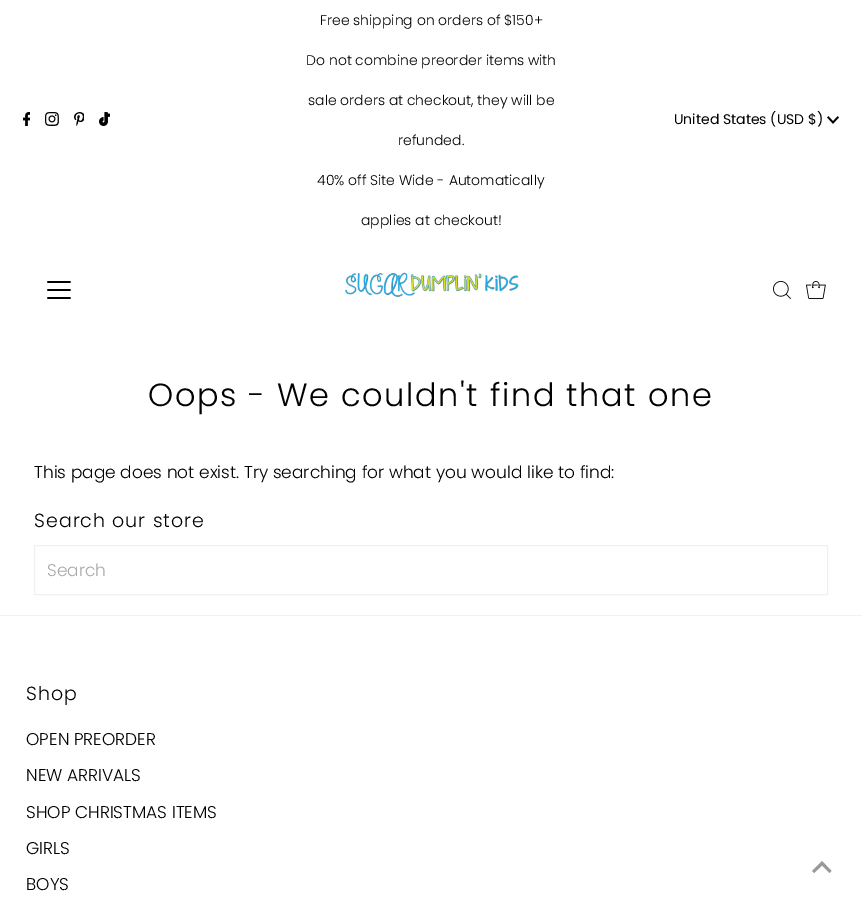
%!PS
<< /PageSize [862 907] >> setpagedevice
/m/moveto load def
/l/rlineto load def
/z/closepath load def
/f/fill load def
/C { dup -16 bitshift 255 div exch dup -8 bitshift 255 and 255 div exch 255 and 255 div setrgbcolor } def
/F { [ exch dup neg 0 0 3 -1 roll 0 0 ] selectfont } def
/T { moveto show } def
/R { rectfill } def
/I { 5 dict begin { /h /w /y /x /name } { exch def } forall
  gsave x y translate w h scale
  w h 8 [w 0 0 h 0 0] name (r) file false 3 colorimage grestore end } def
0 907 translate 1 -1 scale
4 setmiterlimit
16#FFFFFF C
0 0 862 907 R
(1.rgb) 23 112 7 14 I
(2.rgb) 45 112 14 14 I
(3.rgb) 74 112 10 14 I
(4.rgb) 99 112 11 14 I
/Poppins-Light 14 F
16#000000 C
(Free shipping on orders of $150+) 320 25 T
(Do not combine preorder items with) 306 65 T
(sale orders at checkout, they will be) 308 105 T
(refunded.) 398 145 T
(40% off Site Wide - Automatically) 317 185 T
(applies at checkout!) 361 225 T
/Poppins-Regular 14 F
(United States \(USD $\)) 674 124 T
(5.rgb) 827 116 12 8 I
(6.rgb) 47 281 24 18 I
(7.rgb) 345 272 174 25 I
(8.rgb) 773 281 18 18 I
(9.rgb) 806 281 20 18 I
/Poppins-Light 32 F
148 406 m 1.6 0 (Oops - We couldn't find that one) ashow
/Poppins-Light 17 F
(This page does not exist. Try searching for what you would like to find:) 34 478 T
/Poppins-Light 19 F
34 527 m 1 0 (Search our store) ashow
16#F0F0F0 C
34.5 545.5 793 49 rectstroke
/Poppins-Light 17 F
16#AAAAAA C
(Search) 47 576 T
16#F0F0F0 C
0 615 862 1 R
/Poppins-Light 19 F
16#000000 C
26 700 m 1 0 (Shop) ashow
/Poppins-Light 17 F
(OPEN PREORDER) 26 745 T
(NEW ARRIVALS) 26 781 T
(SHOP CHRISTMAS ITEMS) 26 818 T
(GIRLS) 26 854 T
(BOYS) 26 890 T
16#999999 C
822 861 m -10 10 l 2 2 l 8 -7.5 l 7.5 7.5 l 2 -2 l z f
showpage
